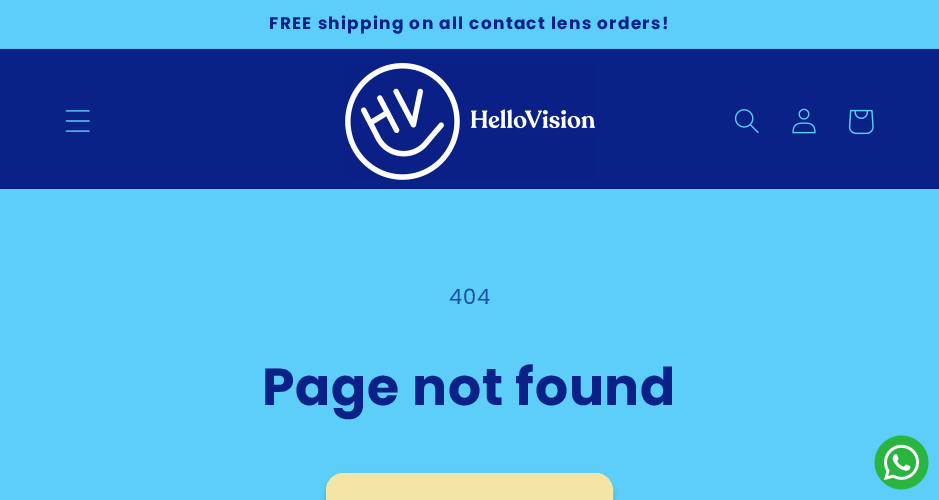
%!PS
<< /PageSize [939 500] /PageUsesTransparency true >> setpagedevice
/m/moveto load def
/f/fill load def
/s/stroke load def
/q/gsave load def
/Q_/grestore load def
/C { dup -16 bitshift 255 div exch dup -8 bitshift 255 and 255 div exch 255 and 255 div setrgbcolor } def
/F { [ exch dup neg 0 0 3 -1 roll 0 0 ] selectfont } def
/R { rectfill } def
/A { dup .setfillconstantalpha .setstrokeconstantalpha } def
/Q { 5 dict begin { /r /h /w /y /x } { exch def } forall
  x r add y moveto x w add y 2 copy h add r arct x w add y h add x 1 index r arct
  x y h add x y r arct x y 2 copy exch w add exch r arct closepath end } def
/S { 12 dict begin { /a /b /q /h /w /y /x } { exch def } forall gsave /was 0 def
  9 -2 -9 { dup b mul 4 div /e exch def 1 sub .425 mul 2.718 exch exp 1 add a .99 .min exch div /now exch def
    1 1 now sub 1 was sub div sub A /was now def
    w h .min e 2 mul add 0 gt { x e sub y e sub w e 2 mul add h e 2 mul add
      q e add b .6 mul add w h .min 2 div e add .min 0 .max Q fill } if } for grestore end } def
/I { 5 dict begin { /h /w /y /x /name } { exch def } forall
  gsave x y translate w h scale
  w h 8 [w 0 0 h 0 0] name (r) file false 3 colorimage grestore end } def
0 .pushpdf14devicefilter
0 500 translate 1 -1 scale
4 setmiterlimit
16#5CCEF9 C
0 0 939 500 R
16#55C0F0 C
0 48 939 1 R
/Poppins-Bold 16.9 F
16#0A2188 C
269 29 m 1.3 0 (FREE shipping on all contact lens orders!) ashow
0 49 939 140 R
(1.rgb) 65 110 25 22 I
(2.rgb) 345 63 250 117 I
(3.rgb) 734 109 25 25 I
(4.rgb) 792 108 24 26 I
(5.rgb) 848 109 26 26 I
/Poppins-Regular 21 F
16#1F4CA4 C
449 304 m .75 0 (404) ashow
/Poppins-Bold 52 F
16#0A2188 C
262 405 m .75 0 (Page not found) ashow
326 477 287 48 17 2.5 .25 S
16#F2E5A5 C
326.5 473.5 286 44 16.5 Q q f Q_
s
(6.rgb) 874 435 55 55 I
.poppdf14devicefilter showpage
